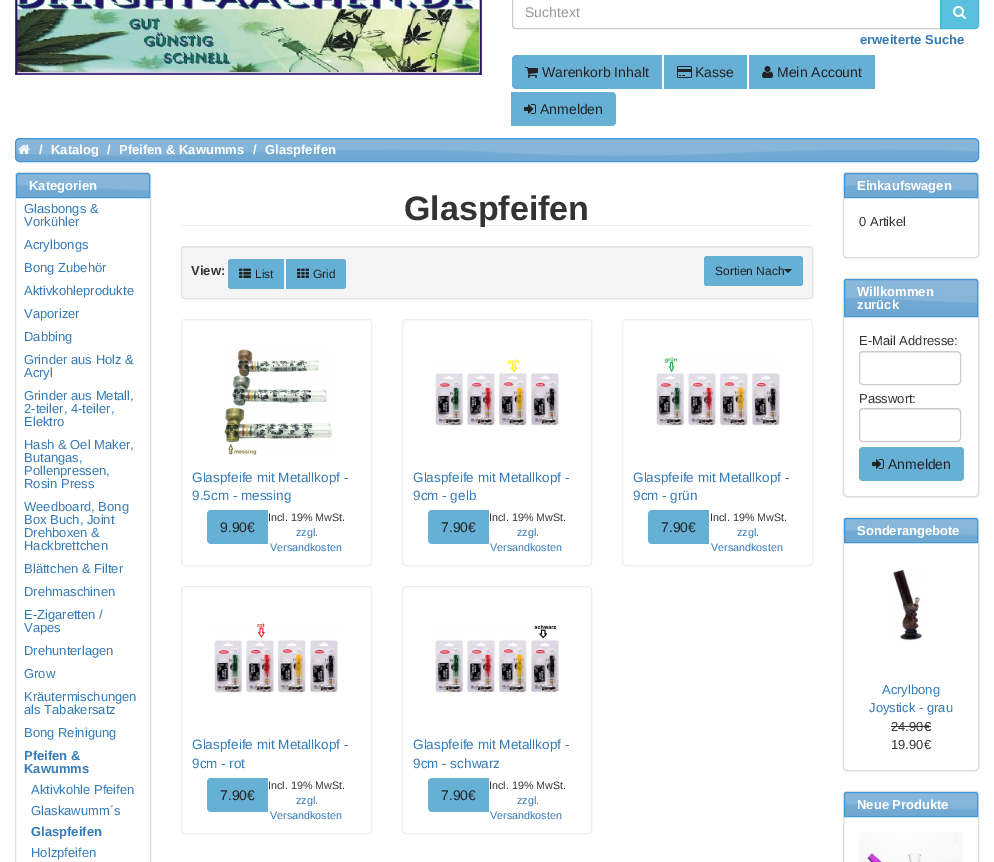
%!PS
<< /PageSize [994 862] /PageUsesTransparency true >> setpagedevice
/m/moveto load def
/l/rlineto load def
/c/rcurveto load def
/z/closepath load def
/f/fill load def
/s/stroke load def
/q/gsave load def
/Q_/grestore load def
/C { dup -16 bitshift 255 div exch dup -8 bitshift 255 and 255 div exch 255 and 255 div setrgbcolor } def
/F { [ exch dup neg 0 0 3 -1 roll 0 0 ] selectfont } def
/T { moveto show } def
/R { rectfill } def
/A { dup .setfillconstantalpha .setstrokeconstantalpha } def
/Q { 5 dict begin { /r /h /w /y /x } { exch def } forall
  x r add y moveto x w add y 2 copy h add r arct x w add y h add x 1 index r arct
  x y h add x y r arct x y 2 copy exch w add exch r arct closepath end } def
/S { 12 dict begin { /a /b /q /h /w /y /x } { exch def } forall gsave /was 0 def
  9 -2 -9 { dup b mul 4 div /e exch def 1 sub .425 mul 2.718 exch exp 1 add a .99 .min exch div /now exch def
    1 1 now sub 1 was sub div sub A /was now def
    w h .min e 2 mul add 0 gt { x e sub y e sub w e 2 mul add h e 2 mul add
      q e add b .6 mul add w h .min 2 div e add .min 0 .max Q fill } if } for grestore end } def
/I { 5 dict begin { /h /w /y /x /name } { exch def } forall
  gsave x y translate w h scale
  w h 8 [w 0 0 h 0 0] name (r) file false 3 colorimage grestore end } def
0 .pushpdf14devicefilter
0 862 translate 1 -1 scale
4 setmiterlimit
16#FFFFFF C
0 0 994 862 R
(1.rgb) 15 0 467 75 I
16#CCCCCC C
516 -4.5 m 424.5 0 l 0 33 l -424.5 0 l -2 0 -3.5 -1.5 -3.5 -3.5 c 0 -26 l 0 -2 1.5 -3.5 3.5 -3.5 c z s
/LiberationSans-Regular 14 F
16#999999 C
(Suchtext) 525 17 T
16#5BC0DE C
940.5 -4.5 m 34.5 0 l 2 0 3.5 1.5 3.5 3.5 c 0 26 l 0 2 -1.5 3.5 -3.5 3.5 c -34.5 0 l z q f Q_
16#46B8DA C
s
(2.rgb) 953 6 13 13 I
/LiberationSans-Bold 13 F
16#337AB7 C
(erweiterte Suche) 860 44 T
16#66B0D6 C
516 55 m 146 0 l 0 34 l -146 0 l -2 0 -4 -2 -4 -4 c 0 -26 l 0 -2 2 -4 4 -4 c z f
(3.rgb) 525 67 13 11 I
/LiberationSans-Regular 14 F
16#222222 C
(Warenkorb Inhalt) 542 77 T
16#66B0D6 C
664 55 83 34 R
(4.rgb) 677 66 15 12 I
16#222222 C
(Kasse) 695 77 T
16#66B0D6 C
749 55 126 34 R
(5.rgb) 762 66 11 12 I
16#222222 C
(Mein Account) 777 77 T
16#66B0D6 C
511 92 m 101 0 l 2 0 4 2 4 4 c 0 26 l 0 2 -2 4 -4 4 c -101 0 l z f
(6.rgb) 524 104 12 10 I
16#222222 C
(Anmelden) 540 114 T
(7.rgb) 15 138 964 24 I
16#4297D7 C
15.5 138.5 963 23 4.5 Q s
(8.rgb) 18 144 12 10 I
/LiberationSans-Bold 13 F
16#FFFFFF C
(/) 39 154 T
(Katalog) 51 154 T
(/) 107 154 T
(Pfeifen & Kawumms) 119 154 T
(/) 253 154 T
(Glaspfeifen) 265 154 T
16#DDDDDD C
15.5 172.5 135 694 3.5 Q s
(9.rgb) 16 173 134 24 I
16#4297D7 C
19 173.5 m 128 0 l 1.5 0 2.5 1 2.5 2.5 c 0 21.5 l -133 0 l 0 -21.5 l 0 -1.5 1 -2.5 2.5 -2.5 c z s
16#FFFFFF C
(Kategorien) 29 190 T
/LiberationSans-Regular 13 F
16#337AB7 C
(Glasbongs &) 24 213 T
(Vorkühler) 24 226 T
(Acrylbongs) 24 249 T
(Bong Zubehör) 24 272 T
(Aktivkohleprodukte) 24 295 T
(Vaporizer) 24 318 T
(Dabbing) 24 341 T
(Grinder aus Holz &) 24 364 T
(Acryl) 24 377 T
(Grinder aus Metall,) 24 400 T
(2-teiler, 4-teiler,) 24 413 T
(Elektro) 24 426 T
(Hash & Oel Maker,) 24 449 T
(Butangas,) 24 462 T
(Pollenpressen,) 24 475 T
(Rosin Press) 24 488 T
(Weedboard, Bong) 24 511 T
(Box Buch, Joint) 24 524 T
(Drehboxen &) 24 537 T
(Hackbrettchen) 24 550 T
(Blättchen & Filter) 24 573 T
(Drehmaschinen) 24 596 T
(E-Zigaretten /) 24 619 T
(Vapes) 24 632 T
(Drehunterlagen) 24 655 T
(Grow) 24 678 T
(Kräutermischungen) 24 701 T
(als Tabakersatz) 24 714 T
(Bong Reinigung) 24 737 T
/LiberationSans-Bold 13 F
(Pfeifen &) 24 760 T
(Kawumms) 24 773 T
/LiberationSans-Regular 13 F
(Aktivkohle Pfeifen) 31 794 T
(Glaskawumm´s) 31 815 T
/LiberationSans-Bold 13 F
(Glaspfeifen) 31 836 T
/LiberationSans-Regular 13 F
(Holzpfeifen) 31 857 T
16#EEEEEE C
181 225 632 1 R
/LiberationSans-Bold 34 F
16#333333 C
(Glaspfeifen) 404 220 T
16#F5F5F5 C
181 246 632 53 3 Q f
16#E9E9E9 C
184 248 m 626 0 l 1 0 2 1 2 2 c 0 -1 0 -3 -2 -3 c -626 0 l -2 0 -2 2 -2 3 c 0 -1 1 -2 2 -2 c z f
16#E3E3E3 C
181.5 246.5 631 52 2.5 Q s
/LiberationSans-Bold 13 F
16#333333 C
(View:) 191 275 T
16#66B0D6 C
231 259 m 53 0 l 0 30 l -53 0 l -1.5 0 -3 -1.5 -3 -3 c 0 -24 l 0 -1.5 1.5 -3 3 -3 c z f
(10.rgb) 239 268 12 10 I
/LiberationSans-Regular 12 F
16#222222 C
(List) 255 278 T
16#66B0D6 C
286 259 m 57 0 l 1.5 0 3 1.5 3 3 c 0 24 l 0 1.5 -1.5 3 -3 3 c -57 0 l z f
(11.rgb) 297 268 12 10 I
16#222222 C
(Grid) 313 278 T
16#66B0D6 C
704 256 99 30 3 Q f
16#222222 C
(Sortien Nach) 715 275 T
784 269 m 8 0 l -4 4 l z f
16#EEEEEE C
181.5 319.5 190 246 3.5 Q s
(12.rgb) 224 349 108 106 I
/LiberationSans-Regular 13.5 F
16#337AB7 C
(Glaspfeife mit Metallkopf -) 192 482 T
(9.5cm - messing) 192 500 T
16#66B0D6 C
211 510 m 57 0 l 0 34 l -57 0 l -2 0 -4 -2 -4 -4 c 0 -26 l 0 -2 2 -4 4 -4 c z f
/LiberationSans-Regular 14 F
16#222222 C
(9.90€) 220 532 T
/LiberationSans-Regular 10.75 F
16#333333 C
(Incl. 19% MwSt.) 268 521 T
16#337AB7 C
(zzgl.) 296 536 T
(Versandkosten) 270 551 T
16#EEEEEE C
402.5 319.5 189 246 3.5 Q s
(13.rgb) 435 359 124 68 I
/LiberationSans-Regular 13.5 F
16#337AB7 C
(Glaspfeife mit Metallkopf -) 413 482 T
(9cm - gelb) 413 500 T
16#66B0D6 C
432 510 m 57 0 l 0 34 l -57 0 l -2 0 -4 -2 -4 -4 c 0 -26 l 0 -2 2 -4 4 -4 c z f
/LiberationSans-Regular 14 F
16#222222 C
(7.90€) 441 532 T
/LiberationSans-Regular 10.75 F
16#333333 C
(Incl. 19% MwSt.) 489 521 T
16#337AB7 C
(zzgl.) 517 536 T
(Versandkosten) 490 551 T
16#EEEEEE C
622.5 319.5 190 246 3.5 Q s
(14.rgb) 656 357 124 70 I
/LiberationSans-Regular 13.5 F
16#337AB7 C
(Glaspfeife mit Metallkopf -) 633 482 T
(9cm - grün) 633 500 T
16#66B0D6 C
652 510 m 57 0 l 0 34 l -57 0 l -2 0 -4 -2 -4 -4 c 0 -26 l 0 -2 2 -4 4 -4 c z f
/LiberationSans-Regular 14 F
16#222222 C
(7.90€) 661 532 T
/LiberationSans-Regular 10.75 F
16#333333 C
(Incl. 19% MwSt.) 710 521 T
16#337AB7 C
(zzgl.) 737 536 T
(Versandkosten) 711 551 T
16#EEEEEE C
181.5 586.5 190 247 3.5 Q s
(15.rgb) 214 623 124 71 I
/LiberationSans-Regular 13.5 F
16#337AB7 C
(Glaspfeife mit Metallkopf -) 192 749 T
(9cm - rot) 192 768 T
16#66B0D6 C
211 778 m 57 0 l 0 34 l -57 0 l -2 0 -4 -2 -4 -4 c 0 -26 l 0 -2 2 -4 4 -4 c z f
/LiberationSans-Regular 14 F
16#222222 C
(7.90€) 220 800 T
/LiberationSans-Regular 10.75 F
16#333333 C
(Incl. 19% MwSt.) 268 789 T
16#337AB7 C
(zzgl.) 296 804 T
(Versandkosten) 270 819 T
16#EEEEEE C
402.5 586.5 189 247 3.5 Q s
(16.rgb) 435 625 124 69 I
/LiberationSans-Regular 13.5 F
16#337AB7 C
(Glaspfeife mit Metallkopf -) 413 749 T
(9cm - schwarz) 413 768 T
16#66B0D6 C
432 778 m 57 0 l 0 34 l -57 0 l -2 0 -4 -2 -4 -4 c 0 -26 l 0 -2 2 -4 4 -4 c z f
/LiberationSans-Regular 14 F
16#222222 C
(7.90€) 441 800 T
/LiberationSans-Regular 10.75 F
16#333333 C
(Incl. 19% MwSt.) 489 789 T
16#337AB7 C
(zzgl.) 517 804 T
(Versandkosten) 490 819 T
16#000000 C
843 173 136 86 4 .5 .05 S
16#FFFFFF C
843.5 172.5 135 85 3.5 Q q f Q_
16#DDDDDD C
s
(9.rgb) 844 173 134 24 I
16#4297D7 C
847 173.5 m 128 0 l 1.5 0 2.5 1 2.5 2.5 c 0 21.5 l -133 0 l 0 -21.5 l 0 -1.5 1 -2.5 2.5 -2.5 c z s
/LiberationSans-Bold 13 F
16#FFFFFF C
(Einkaufswagen) 857 190 T
/LiberationSans-Regular 13 F
16#333333 C
(0 Artikel) 859 226 T
16#000000 C
843 279 136 219 4 .5 .05 S
16#FFFFFF C
843.5 278.5 135 218 3.5 Q q f Q_
16#DDDDDD C
s
(17.rgb) 844 279 134 37 I
16#4297D7 C
847 279.5 m 128 0 l 1.5 0 2.5 1 2.5 2.5 c 0 34.5 l -133 0 l 0 -34.5 l 0 -1.5 1 -2.5 2.5 -2.5 c z s
/LiberationSans-Bold 13 F
16#FFFFFF C
(Willkommen) 857 296 T
(zurück) 857 309 T
/LiberationSans-Regular 13 F
16#333333 C
(E-Mail Addresse:) 859 345 T
16#ECECEC C
863 353 m 94 0 l 2 0 3 1 3 3 c 0 -8 -16 -4 -19 -4 c -62 0 l -3 0 -19 -4 -19 4 c 0 -2 1 -3 3 -3 c z f
16#CCCCCC C
859.5 351.5 101 33 3.5 Q s
16#333333 C
(Passwort:) 859 403 T
16#ECECEC C
863 410 m 94 0 l 2 0 3 1 3 3 c 0 -8 -16 -4 -19 -4 c -62 0 l -3 0 -19 -4 -19 4 c 0 -2 1 -3 3 -3 c z f
16#CCCCCC C
859.5 408.5 101 33 3.5 Q s
16#66B0D6 C
859 447 105 34 4 Q f
(6.rgb) 872 459 12 10 I
/LiberationSans-Regular 14 F
16#222222 C
(Anmelden) 888 469 T
16#000000 C
843 518 136 254 4 .5 .05 S
16#FFFFFF C
843.5 517.5 135 253 3.5 Q q f Q_
16#DDDDDD C
s
(18.rgb) 844 518 134 24 I
16#4297D7 C
847 518.5 m 128 0 l 1.5 0 2.5 1 2.5 2.5 c 0 21.5 l -133 0 l 0 -21.5 l 0 -1.5 1 -2.5 2.5 -2.5 c z s
/LiberationSans-Bold 13 F
16#FFFFFF C
(Sonderangebote) 857 535 T
(19.rgb) 893 569 29 72 I
/LiberationSans-Regular 13 F
16#337AB7 C
(Acrylbong) 882 694 T
(Joystick - grau) 869 712 T
16#333333 C
(24.90€) 891 731 T
891 726 40 1 R
(19.90€) 891 749 T
16#DDDDDD C
843.5 791.5 135 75 3.5 Q s
(18.rgb) 844 792 134 24 I
16#4297D7 C
847 792.5 m 128 0 l 1.5 0 2.5 1 2.5 2.5 c 0 21.5 l -133 0 l 0 -21.5 l 0 -1.5 1 -2.5 2.5 -2.5 c z s
/LiberationSans-Bold 13 F
16#FFFFFF C
(Neue Produkte) 857 809 T
(20.rgb) 859 832 104 30 I
.poppdf14devicefilter showpage
